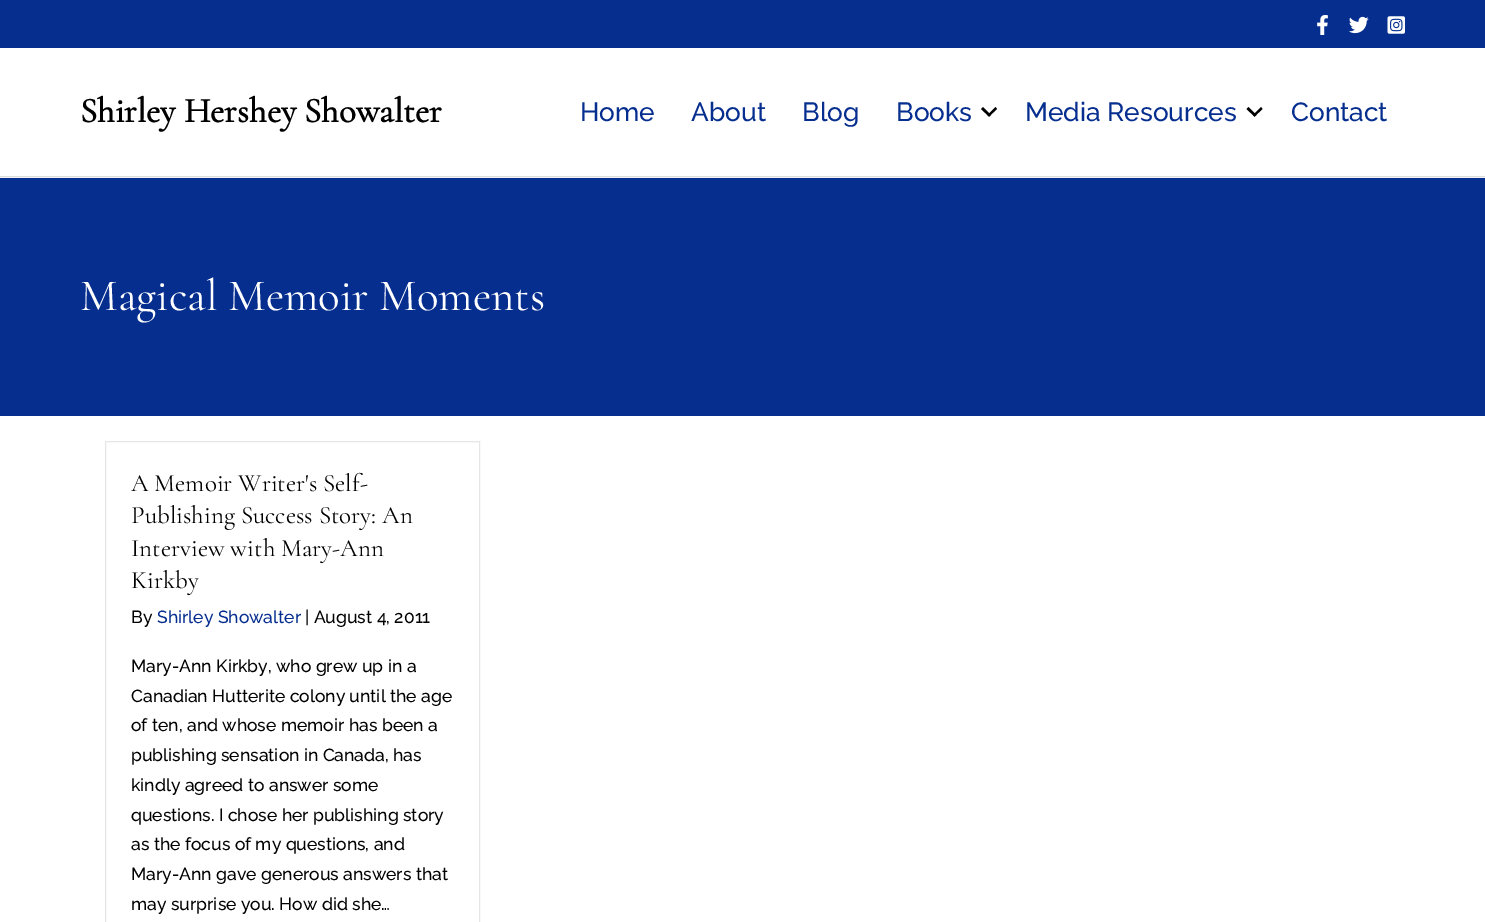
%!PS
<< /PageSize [1485 922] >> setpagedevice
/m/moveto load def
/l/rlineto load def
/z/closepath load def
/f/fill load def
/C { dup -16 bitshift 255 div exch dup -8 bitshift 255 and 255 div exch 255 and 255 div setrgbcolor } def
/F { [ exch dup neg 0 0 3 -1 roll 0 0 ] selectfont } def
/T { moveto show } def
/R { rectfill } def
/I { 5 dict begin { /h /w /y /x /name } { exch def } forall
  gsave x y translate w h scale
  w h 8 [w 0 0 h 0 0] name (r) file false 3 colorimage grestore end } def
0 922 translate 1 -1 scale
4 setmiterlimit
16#F2F2F2 C
0 0 1485 922 R
16#052E8F C
0 0 1485 48 R
(1.rgb) 1317 15 11 20 I
(2.rgb) 1348 16 21 18 I
(3.rgb) 1387 16 18 18 I
16#FFFFFF C
0 48 1485 128 R
16#DDDDDD C
0 176 1485 1 R
/CormorantGaramond-Bold 35 F
16#000000 C
(Shirley Hershey Showalter) 80 122 T
/Raleway-Medium 26.25 F
16#052E8F C
(Home) 580 121 T
(About) 691 121 T
(Blog) 802 121 T
(Books) 896 121 T
16#000000 C
995.5 107 m 1.5 2 l -8 7.5 l -1.5 -1.5 l z f
983 107 m 8 8 l -2 1.5 l -8 -7.5 l z f
16#052E8F C
(Media Resources) 1025 121 T
16#000000 C
1261 107 m 1.5 2 l -8 7.5 l -1.5 -1.5 l z f
1248.5 107 m 8 8 l -2 1.5 l -8 -7.5 l z f
16#052E8F C
(Contact) 1291 121 T
16#FFFFFF C
0 416 1485 506 R
16#052E8F C
0 178 1485 238 R
/CormorantGaramond-Light 45 F
16#FFFFFF C
(Magical Memoir Moments) 80 310 T
16#E6E6E6 C
105.5 441.5 374 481 rectstroke
/CormorantGaramond-Light 25 F
16#000000 C
(A Memoir Writer's Self-) 131 491 T
(Publishing Success Story: An) 131 523 T
(Interview with Mary-Ann) 131 556 T
(Kirkby) 131 588 T
/Raleway-Medium 17.5 F
(By) 131 623 T
16#052E8F C
(Shirley Showalter) 157 623 T
16#000000 C
(| August 4, 2011) 305 623 T
(Mary-Ann Kirkby, who grew up in a) 131 672 T
(Canadian Hutterite colony until the age) 131 702 T
(of ten, and whose memoir has been a) 131 731 T
(publishing sensation in Canada, has) 131 761 T
(kindly agreed to answer some) 131 791 T
(questions. I chose her publishing story) 131 821 T
(as the focus of my questions, and) 131 850 T
(Mary-Ann gave generous answers that) 131 880 T
(may surprise you. How did she…) 131 910 T
showpage
